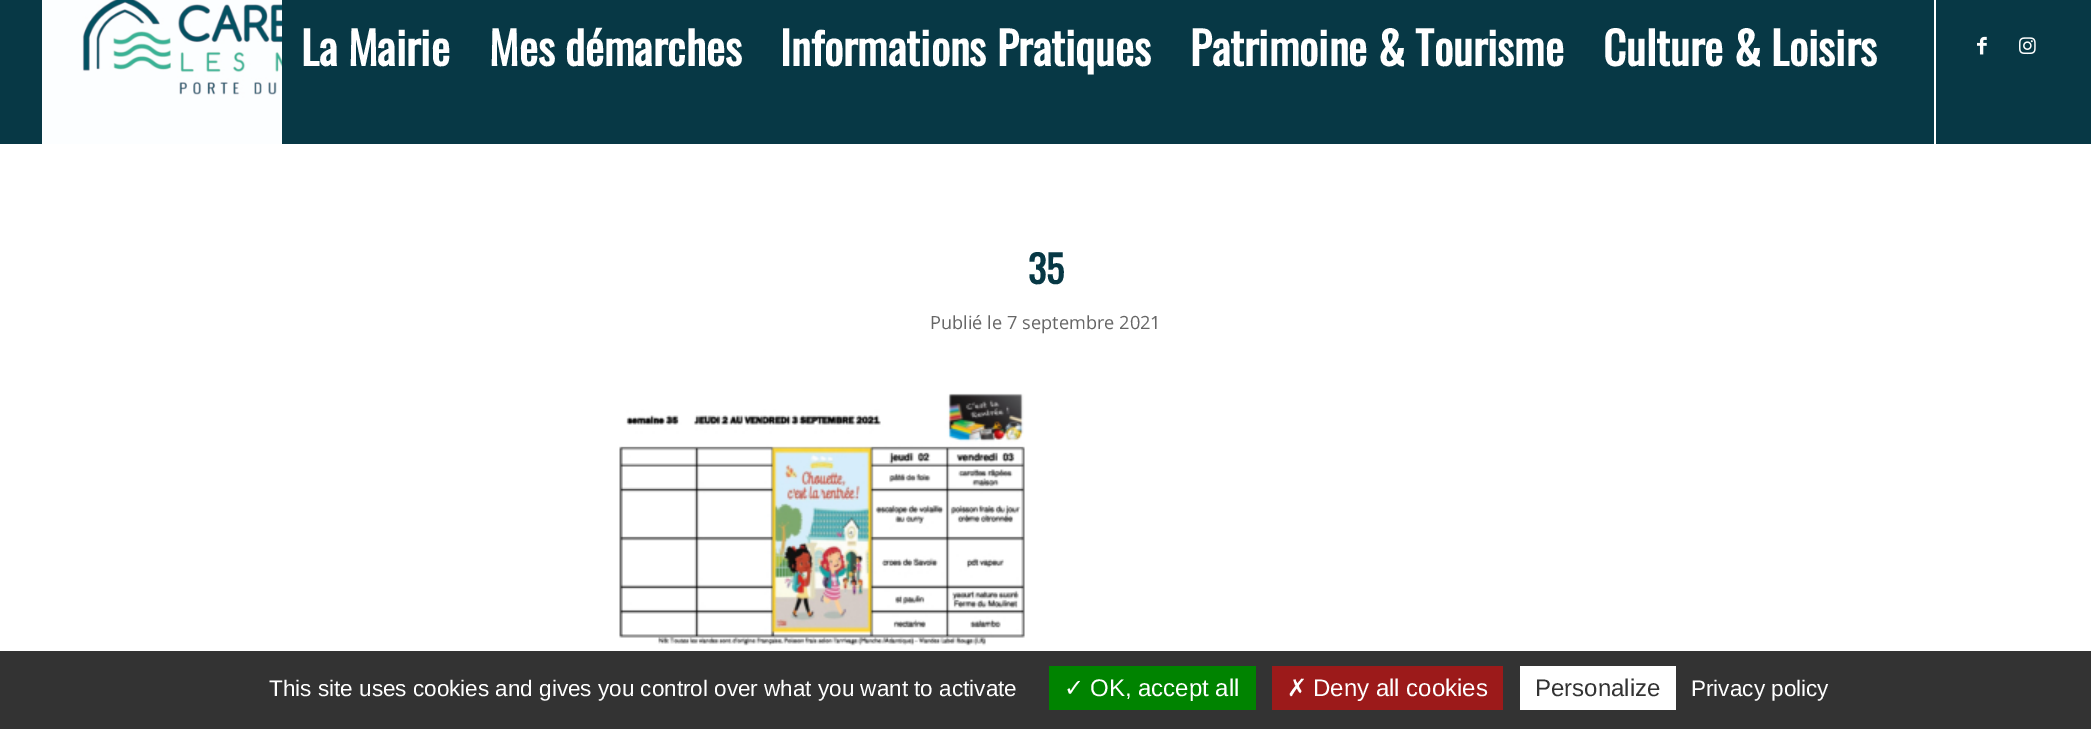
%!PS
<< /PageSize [2091 729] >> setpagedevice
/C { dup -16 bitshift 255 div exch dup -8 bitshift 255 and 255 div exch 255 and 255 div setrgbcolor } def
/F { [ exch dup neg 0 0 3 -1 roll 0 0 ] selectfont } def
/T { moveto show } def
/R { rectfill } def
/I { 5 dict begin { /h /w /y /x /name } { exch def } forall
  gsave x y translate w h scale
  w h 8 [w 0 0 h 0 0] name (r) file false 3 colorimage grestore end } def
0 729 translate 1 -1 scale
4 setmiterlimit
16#FFFFFF C
0 0 2091 729 R
16#073845 C
0 0 2091 144 R
(1.rgb) 42 0 240 144 I
16#FFFFFF C
1934 0 2 144 R
/Oswald-Bold 45 F
(La Mairie) 301 66 T
(Mes démarches) 489 66 T
(Informations Pratiques) 780 66 T
(Patrimoine & Tourisme) 1190 66 T
(Culture & Loisirs) 1603 66 T
(2.rgb) 1977 36 10 19 I
(3.rgb) 2019 37 17 18 I
/Oswald-Bold 38 F
16#073845 C
(35) 1028 284 T
/OpenSans-Regular 18.2 F
16#666666 C
(Publié le 7 septembre 2021) 930 329 T
(4.rgb) 619 393 406 253 I
16#333333 C
0 651 2091 78 R
/LiberationSans-Regular 22.5 F
16#FFFFFF C
(This site uses cookies and gives you control over what you want to activate) 269 696 T
16#008300 C
1049 666 207 44 R
/DejaVuSans-Regular 24 F
16#FFFFFF C
(✓) 1064 696 T
/LiberationSans-Regular 24 F
(OK, accept all) 1090 696 T
16#9C1A1A C
1272 666 231 44 R
/DejaVuSans-Regular 24 F
16#FFFFFF C
(✗) 1287 696 T
/LiberationSans-Regular 24 F
(Deny all cookies) 1313 696 T
1520 666 156 44 R
16#333333 C
(Personalize) 1535 696 T
/LiberationSans-Regular 22.5 F
16#FFFFFF C
(Privacy policy) 1691 696 T
showpage
